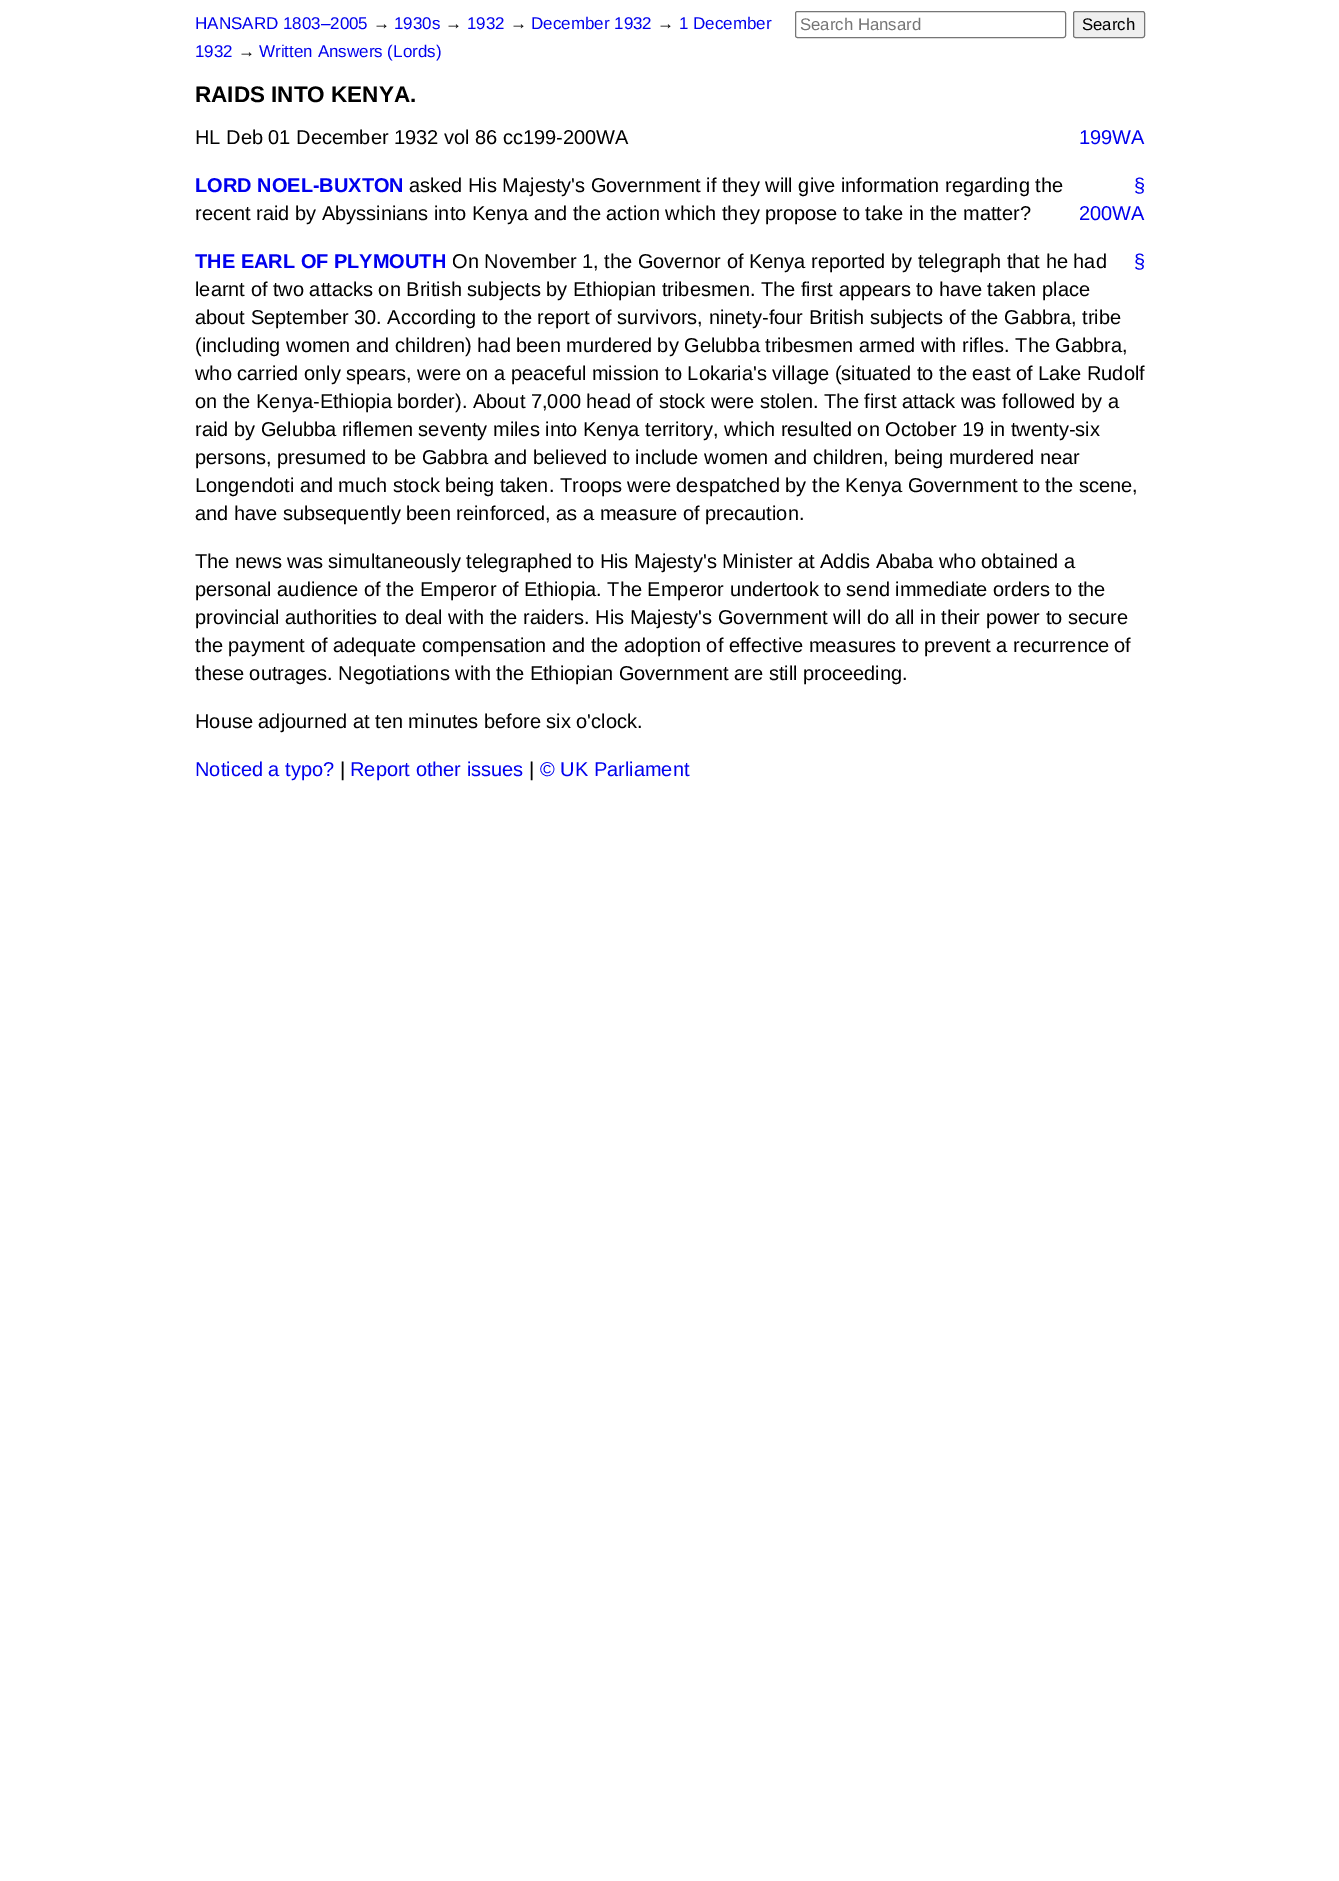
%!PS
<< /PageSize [1339 1881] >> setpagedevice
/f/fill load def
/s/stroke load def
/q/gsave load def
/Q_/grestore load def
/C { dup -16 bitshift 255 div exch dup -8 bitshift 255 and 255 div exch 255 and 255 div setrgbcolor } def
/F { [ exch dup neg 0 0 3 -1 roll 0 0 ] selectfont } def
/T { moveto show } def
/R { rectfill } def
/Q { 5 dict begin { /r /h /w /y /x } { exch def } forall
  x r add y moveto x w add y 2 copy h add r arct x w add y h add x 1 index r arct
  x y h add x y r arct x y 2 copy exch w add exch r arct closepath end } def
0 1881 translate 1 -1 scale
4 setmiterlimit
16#FFFFFF C
0 0 1339 1881 R
/LiberationSans-Regular 17 F
16#0000EE C
(HANSARD 1803–2005) 195 29 T
16#000000 C
(→) 373 29 T
16#0000EE C
(1930s) 394 29 T
16#000000 C
(→) 445 29 T
16#0000EE C
(1932) 467 29 T
16#000000 C
(→) 510 29 T
16#0000EE C
(December 1932) 531 29 T
16#000000 C
(→) 657 29 T
16#0000EE C
(1 December) 679 29 T
(1932) 195 57 T
16#000000 C
(→) 238 57 T
16#0000EE C
(Written Answers \(Lords\)) 259 57 T
16#767676 C
795.5 11.5 270 26 2 Q s
/LiberationSans-Regular 16.75 F
16#757575 C
(Search Hansard) 800 30 T
16#EFEFEF C
1073.5 11.5 71 26 2 Q q f Q_
16#767676 C
s
16#000000 C
(Search) 1082 30 T
/LiberationSans-Bold 22.5 F
(RAIDS INTO KENYA.) 195 102 T
/LiberationSans-Regular 20 F
(HL Deb 01 December 1932 vol 86 cc199-200WA) 195 144 T
16#0000EE C
(199WA) 1079 144 T
16#000000 C
(asked His Majesty's Government if they will give information regarding the) 409 192 T
(recent raid by Abyssinians into Kenya and the action which they propose to take in the matter?) 195 220 T
16#0000EE C
(200WA) 1079 220 T
/LiberationSans-Bold 20 F
(LORD NOEL-BUXTON) 195 192 T
/LiberationSans-Regular 20 F
(§) 1134 192 T
/LiberationSans-Bold 20 F
(THE EARL OF PLYMOUTH) 195 268 T
/LiberationSans-Regular 20 F
16#000000 C
(On November 1, the Governor of Kenya reported by telegraph that he had) 452 268 T
16#0000EE C
(§) 1134 268 T
16#000000 C
(learnt of two attacks on British subjects by Ethiopian tribesmen. The first appears to have taken place) 195 296 T
(about September 30. According to the report of survivors, ninety-four British subjects of the Gabbra, tribe) 195 324 T
(\(including women and children\) had been murdered by Gelubba tribesmen armed with rifles. The Gabbra,) 195 352 T
(who carried only spears, were on a peaceful mission to Lokaria's village \(situated to the east of Lake Rudolf) 195 380 T
(on the Kenya-Ethiopia border\). About 7,000 head of stock were stolen. The first attack was followed by a) 195 408 T
(raid by Gelubba riflemen seventy miles into Kenya territory, which resulted on October 19 in twenty-six) 195 436 T
(persons, presumed to be Gabbra and believed to include women and children, being murdered near) 195 464 T
(Longendoti and much stock being taken. Troops were despatched by the Kenya Government to the scene,) 195 492 T
(and have subsequently been reinforced, as a measure of precaution.) 195 520 T
(The news was simultaneously telegraphed to His Majesty's Minister at Addis Ababa who obtained a) 195 568 T
(personal audience of the Emperor of Ethiopia. The Emperor undertook to send immediate orders to the) 195 596 T
(provincial authorities to deal with the raiders. His Majesty's Government will do all in their power to secure) 195 624 T
(the payment of adequate compensation and the adoption of effective measures to prevent a recurrence of) 195 652 T
(these outrages. Negotiations with the Ethiopian Government are still proceeding.) 195 680 T
(House adjourned at ten minutes before six o'clock.) 195 728 T
16#0000EE C
(Noticed a typo?) 195 776 T
16#000000 C
(|) 340 776 T
16#0000EE C
(Report other issues) 350 776 T
16#000000 C
(|) 529 776 T
16#0000EE C
(© UK Parliament) 540 776 T
showpage
